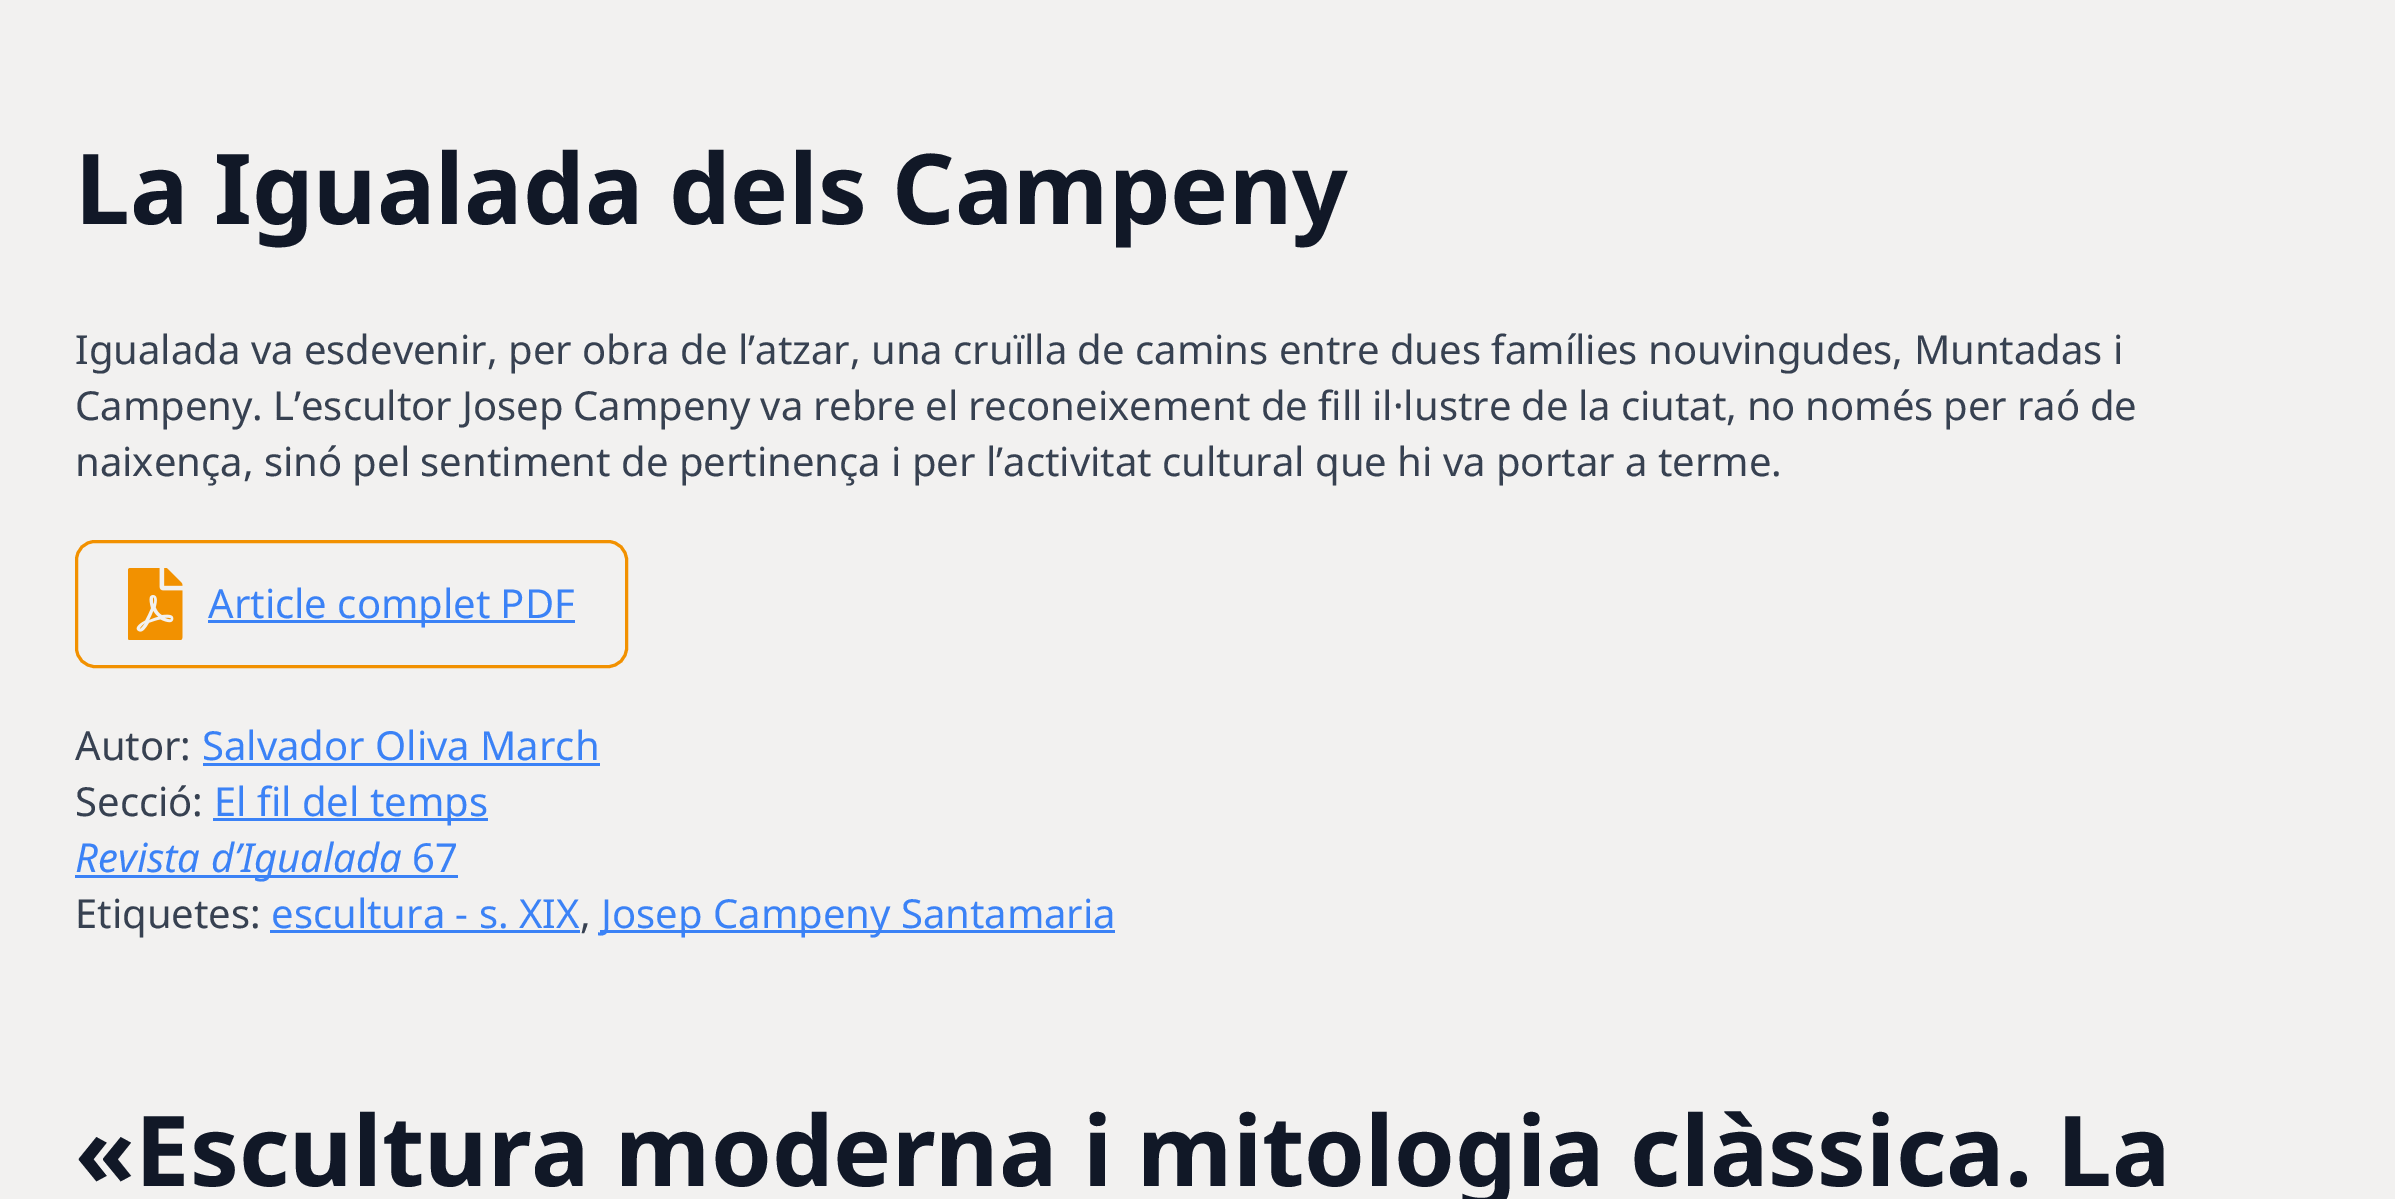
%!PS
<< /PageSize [2395 1199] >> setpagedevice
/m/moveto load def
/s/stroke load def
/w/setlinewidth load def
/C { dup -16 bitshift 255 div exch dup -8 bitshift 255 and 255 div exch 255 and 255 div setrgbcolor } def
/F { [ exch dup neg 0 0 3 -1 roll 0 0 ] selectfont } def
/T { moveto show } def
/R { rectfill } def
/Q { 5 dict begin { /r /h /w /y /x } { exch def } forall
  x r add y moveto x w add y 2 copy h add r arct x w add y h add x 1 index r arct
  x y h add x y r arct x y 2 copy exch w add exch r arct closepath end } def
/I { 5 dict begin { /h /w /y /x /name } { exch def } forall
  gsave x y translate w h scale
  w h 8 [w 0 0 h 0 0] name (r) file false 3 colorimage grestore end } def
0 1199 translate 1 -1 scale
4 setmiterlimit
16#F2F1F0 C
0 0 2395 1199 R
/NotoSans-Bold 97.7 F
16#111827 C
(La Igualada dels Campeny) 75 224 T
/NotoSans-Regular 40 F
16#374151 C
(Igualada va esdevenir, per obra de l’atzar, una cruïlla de camins entre dues famílies nouvingudes, Muntadas i) 75 364 T
75 420 m -.6 0 32 (Campeny. L’escultor Josep Campeny va rebre el reconeixement de fill il·lustre de la ciutat, no només per raó de) widthshow
(naixença, sinó pel sentiment de pertinença i per l’activitat cultural que hi va portar a terme.) 75 476 T
16#F29100 C
3 w
76.5 541.5 550 125 18.5 Q s
(1.rgb) 128 568 55 72 I
16#3B82F6 C
208 620 367 3 R
(Article complet PDF) 208 618 T
16#374151 C
(Autor:) 75 760 T
16#3B82F6 C
(Salvador Oliva March) 202 760 T
203 763 397 3 R
16#374151 C
(Secció:) 75 816 T
16#3B82F6 C
213 818 275 3 R
(El fil del temps) 214 816 T
75 875 383 3 R
/NotoSans-Italic 40 F
(Revista d’Igualada) 75 872 T
/NotoSans-Regular 40 F
(67) 412 872 T
16#374151 C
(Etiquetes:) 75 928 T
16#3B82F6 C
(escultura - s. XIX) 271 928 T
270 930 310 3 R
16#374151 C
(,) 580 928 T
16#3B82F6 C
600 930 515 3 R
(Josep Campeny Santamaria) 601 928 T
/NotoSans-Bold 97.7 F
16#111827 C
(«Escultura moderna i mitologia clàssica. La) 75 1186 T
showpage
